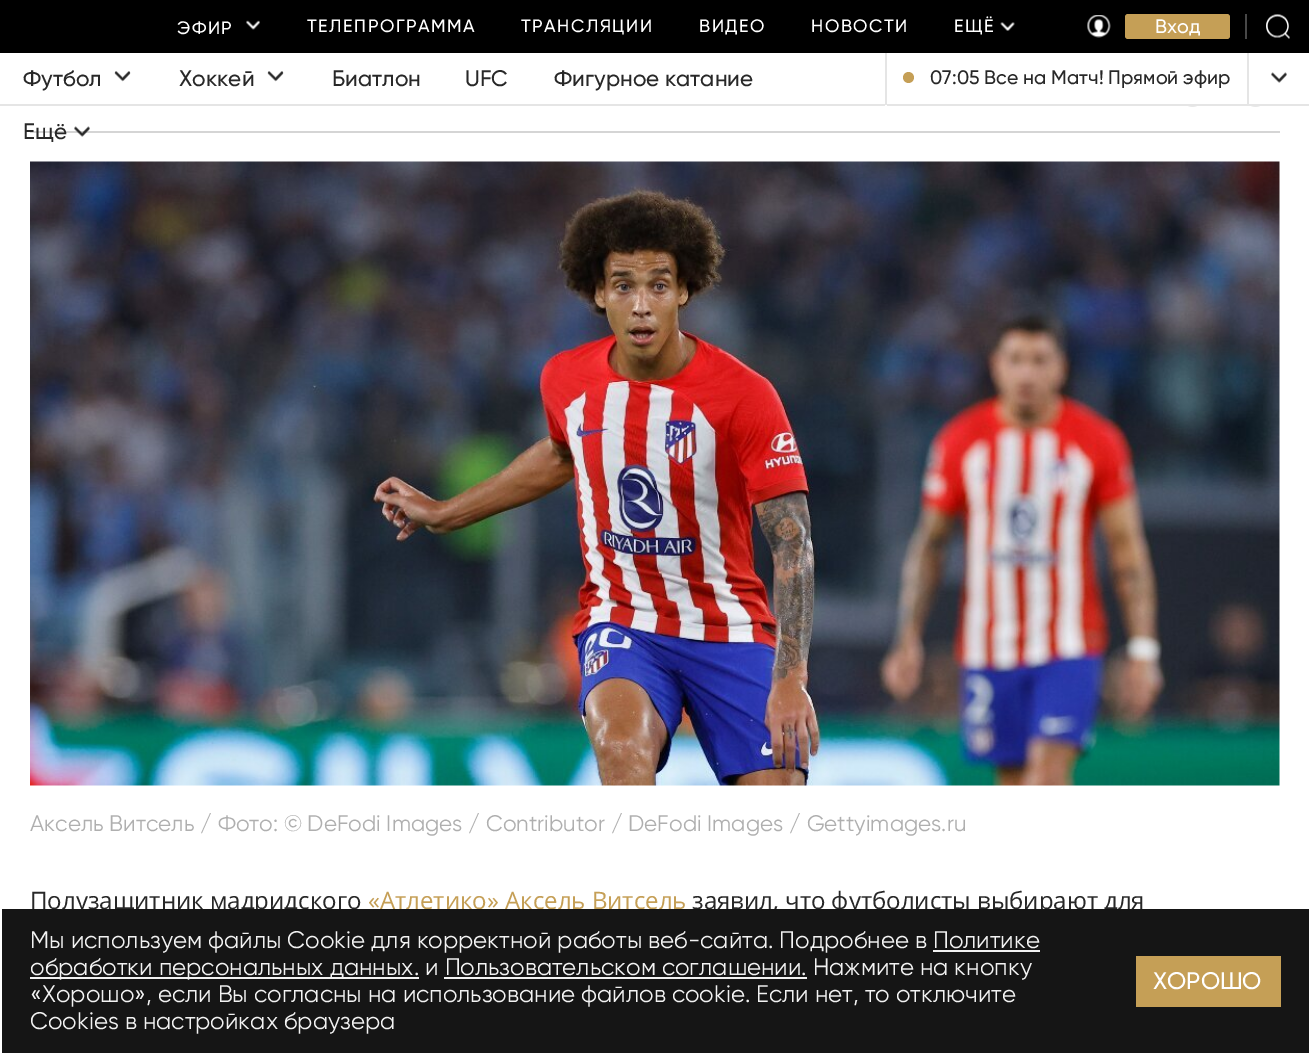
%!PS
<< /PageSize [1309 1053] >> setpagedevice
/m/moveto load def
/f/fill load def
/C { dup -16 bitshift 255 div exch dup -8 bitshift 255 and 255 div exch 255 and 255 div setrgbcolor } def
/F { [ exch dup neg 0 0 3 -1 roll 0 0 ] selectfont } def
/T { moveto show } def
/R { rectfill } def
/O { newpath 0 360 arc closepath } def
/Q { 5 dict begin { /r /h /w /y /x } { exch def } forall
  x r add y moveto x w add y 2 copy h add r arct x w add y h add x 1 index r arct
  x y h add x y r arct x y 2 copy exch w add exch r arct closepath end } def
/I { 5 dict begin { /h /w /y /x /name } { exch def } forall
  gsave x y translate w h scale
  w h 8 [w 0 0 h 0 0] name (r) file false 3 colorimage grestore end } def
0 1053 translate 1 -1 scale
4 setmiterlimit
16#FFFFFF C
0 0 1309 1053 R
16#000000 C
0 0 1309 53 R
/Gilroy-Medium 18 F
16#FFFFFF C
177 34 m 1.5 0 (ЭФИР) ashow
(1.rgb) 246 20 14 10 I
307 32 m 1.5 0 (ТЕЛЕПРОГРАММА) ashow
521 32 m 1.5 0 (ТРАНСЛЯЦИИ) ashow
699 32 m 1.5 0 (ВИДЕО) ashow
811 32 m 1.5 0 (НОВОСТИ) ashow
954 32 m 1.5 0 (ЕЩЁ) ashow
(2.rgb) 1000 22 15 9 I
(3.rgb) 1087 15 24 23 I
16#C59F56 C
1125 14 105 25 3 Q f
/Gilroy-Medium 19.5 F
16#FFFFFF C
(Вход) 1155 33 T
16#484848 C
1245 14 2 25 R
(4.rgb) 1266 14 24 25 I
16#E5E5E5 C
0 104 885 2 R
/Gilroy-Medium 22.5 F
16#282828 C
(Футбол) 23 86 T
(5.rgb) 114 71 17 11 I
(Хоккей) 179 86 T
(5.rgb) 267 71 17 11 I
(Биатлон) 332 86 T
(UFC) 465 86 T
(Фигурное катание) 554 86 T
16#D5D5D5 C
30 131 1250 2 R
16#282828 C
(Ещё) 23 139 T
(6.rgb) 74 126 16 11 I
16#E5E5E5 C
885 53 2 52 R
887 104 422 2 R
16#C59F56 C
908.5 77.5 5.5 O f
/Gilroy-Medium 19.5 F
16#282828 C
(07:05 Все на Матч! Прямой эфир) 930 84 T
16#E5E5E5 C
1247 53 2 51 R
(7.rgb) 1271 72 16 11 I
(8.rgb) 1188 106 9 1 I
(8.rgb) 1251 106 9 1 I
(9.rgb) 30 161 1250 625 I
/Gilroy-Regular 22.5 F
16#AFAFAF C
(Аксель Витсель / Фото: © DeFodi Images / Contributor / DeFodi Images / Gettyimages.ru) 30 831 T
/OpenSans-Regular 24 F
16#282828 C
(Полузащитник мадридского) 30 909 T
16#C59F56 C
(«Атлетико» Аксель Витсель) 368 909 T
16#282828 C
(заявил, что футболисты выбирают для) 692 909 T
16#151515 C
2 909 1307 144 R
/Gilroy-Regular 24 F
16#F2F2F2 C
(Мы используем файлы Сookie для корректной работы веб-сайта. Подробнее в Политике) 30 948 T
30 977 389 2 R
(обработки персональных данных. и Пользовательском соглашении. Нажмите на кнопку) 30 975 T
933 950 107 2 R
444 977 363 2 R
(«Хорошо», если Вы согласны на использование файлов cookie. Если нет, то отключите) 30 1002 T
(Cookies в настройках браузера) 30 1029 T
16#C59F56 C
1136 956 145 51 R
/Gilroy-Medium 24 F
16#FFFFFF C
(ХОРОШО) 1153 989 T
showpage
